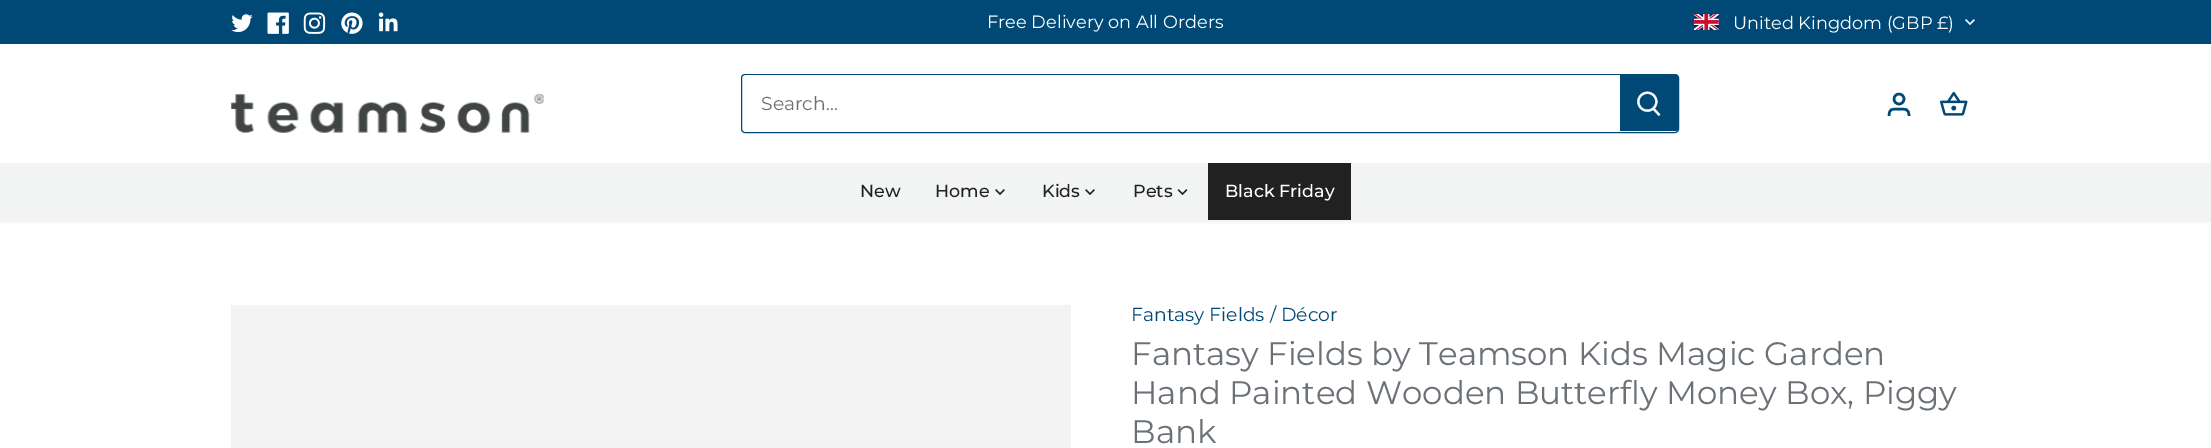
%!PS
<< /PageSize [2211 448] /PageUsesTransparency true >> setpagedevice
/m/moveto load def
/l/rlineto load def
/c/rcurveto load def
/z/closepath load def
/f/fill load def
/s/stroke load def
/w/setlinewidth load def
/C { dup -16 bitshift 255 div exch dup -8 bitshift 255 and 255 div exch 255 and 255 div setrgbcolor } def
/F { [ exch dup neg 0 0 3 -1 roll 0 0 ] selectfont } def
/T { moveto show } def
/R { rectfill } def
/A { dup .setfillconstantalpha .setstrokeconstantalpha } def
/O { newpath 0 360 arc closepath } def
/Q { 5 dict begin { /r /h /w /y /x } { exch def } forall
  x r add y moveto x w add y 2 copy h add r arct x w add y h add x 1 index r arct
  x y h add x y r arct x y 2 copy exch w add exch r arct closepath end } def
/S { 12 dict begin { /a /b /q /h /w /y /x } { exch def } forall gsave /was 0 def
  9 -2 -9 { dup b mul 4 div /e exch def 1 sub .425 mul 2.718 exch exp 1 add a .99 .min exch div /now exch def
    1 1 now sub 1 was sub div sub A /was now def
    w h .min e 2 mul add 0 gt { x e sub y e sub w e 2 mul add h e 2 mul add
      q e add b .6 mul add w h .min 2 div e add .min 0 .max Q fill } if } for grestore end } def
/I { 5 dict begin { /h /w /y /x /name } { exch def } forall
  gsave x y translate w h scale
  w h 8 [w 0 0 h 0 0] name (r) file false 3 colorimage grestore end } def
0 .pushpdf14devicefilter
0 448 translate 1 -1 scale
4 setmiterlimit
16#FFFFFF C
0 0 2211 448 R
16#000000 C
-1 43 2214 178 0 2 .08 S
16#004976 C
0 0 2211 44 R
(1.rgb) 231 14 22 19 I
(2.rgb) 267 12 22 22 I
(3.rgb) 303 12 23 22 I
(4.rgb) 341 12 22 22 I
(5.rgb) 378 12 20 20 I
/Montserrat-Regular 17.75 F
16#FFFFFF C
(Free Delivery on All Orders) 987 28 T
(6.rgb) 1694 14 25 16 I
(United Kingdom \(GBP £\)) 1733 29 T
(7.rgb) 1965 19 10 6 I
16#F3F5F4 C
0 163 2211 57 R
16#FFFFFF C
0 44 2211 119 R
(8.rgb) 231 94 313 39 I
16#004976 C
741.5 74.5 937 58 3.5 Q s
16#FFFFFF C
747 75 m 874 0 l 0 56 l -874 0 l -2 0 -4 -2 -4 -4 c 0 -48 l 0 -2 2 -4 4 -4 c z f
/Montserrat-Regular 18.75 F
16#6B7177 C
(Search...) 761 110 T
16#004976 C
1620 75 m 55.5 0 l 1.5 0 2.5 1 2.5 2.5 c 0 51 l 0 1.5 -1 2.5 -2.5 2.5 c -55.5 0 l z f
(9.rgb) 1637 91 24 25 I
2.5 w
1899 99 5 O s
1909 116 m 0 -7.5 -3.5 -7 -10 -7 c -7 0 -10 -.5 -10 7 c s
(10.rgb) 1940 91 28 25 I
/Montserrat-Medium 17.5 F
16#212121 C
(New) 860 197 T
(Home) 935 197 T
(11.rgb) 995 189 10 6 I
(Kids) 1042 197 T
(11.rgb) 1085 189 10 6 I
(Pets) 1133 197 T
(12.rgb) 1177 189 11 7 I
1208 163 143 57 R
16#FFFFFF C
(Black Friday) 1225 197 T
16#F3F3F3 C
231 305 840 143 R
/Montserrat-Regular 18.75 F
16#004976 C
(Fantasy Fields / Décor) 1131 321 T
/Montserrat-Regular 32.5 F
16#6B7177 C
(Fantasy Fields by Teamson Kids Magic Garden) 1131 365 T
(Hand Painted Wooden Butterfly Money Box, Piggy) 1131 404 T
(Bank) 1131 443 T
.poppdf14devicefilter showpage
